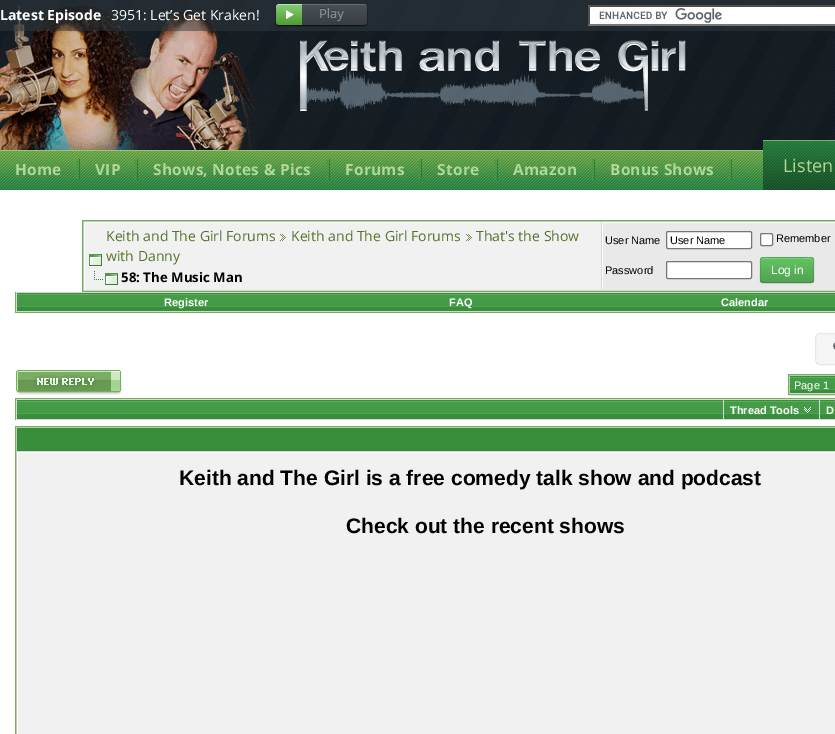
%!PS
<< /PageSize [835 734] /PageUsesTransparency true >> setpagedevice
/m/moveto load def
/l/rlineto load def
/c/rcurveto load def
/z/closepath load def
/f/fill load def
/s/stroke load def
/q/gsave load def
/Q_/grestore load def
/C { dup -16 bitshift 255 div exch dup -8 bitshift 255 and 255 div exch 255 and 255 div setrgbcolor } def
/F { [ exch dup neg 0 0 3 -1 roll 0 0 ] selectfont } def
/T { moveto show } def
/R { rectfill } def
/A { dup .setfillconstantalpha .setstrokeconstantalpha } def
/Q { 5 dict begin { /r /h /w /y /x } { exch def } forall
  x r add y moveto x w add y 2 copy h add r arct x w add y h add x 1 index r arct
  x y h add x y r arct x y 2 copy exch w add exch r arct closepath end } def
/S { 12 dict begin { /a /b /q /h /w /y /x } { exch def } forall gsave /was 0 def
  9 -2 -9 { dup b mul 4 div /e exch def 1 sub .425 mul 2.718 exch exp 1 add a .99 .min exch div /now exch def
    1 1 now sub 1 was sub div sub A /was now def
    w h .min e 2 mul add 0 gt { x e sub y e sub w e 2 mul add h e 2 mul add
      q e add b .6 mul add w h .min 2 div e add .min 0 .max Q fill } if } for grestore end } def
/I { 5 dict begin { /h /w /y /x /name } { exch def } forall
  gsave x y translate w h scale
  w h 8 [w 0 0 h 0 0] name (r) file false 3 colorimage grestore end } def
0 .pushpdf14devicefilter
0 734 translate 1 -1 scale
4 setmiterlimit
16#FFFFFF C
0 0 835 734 R
(1.rgb) 0 0 835 150 I
(4.rgb) 0 1 263 149 I
0.5 A
16#303A40 C
0 0 835 31 R
/OpenSans-Bold 14 F
1 A
16#FFFFFF C
(Latest Episode) 0 20 T
/OpenSans-Regular 14 F
(3951: Let’s Get Kraken!) 111 20 T
(2.rgb) 275 4 93 23 I
588 5 247 21 R
(3.rgb) 599 8 123 15 I
16#4F4F4F C
588 5 m 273 0 l -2 2 l -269 0 l z f
16#767676 C
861 26 m -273 0 l 2 -2 l 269 0 l z f
16#4F4F4F C
588 26 m 0 -21 l 2 2 l 0 17 l z f
(5.rgb) 300 40 386 71 I
(6.rgb) 0 150 763 40 I
/OpenSans-Bold 15.4 F
16#B0D896 C
15 175 m .3 0 (Home) ashow
16#247E3C C
79 159 1 21 R
16#4F9540 C
77 159 1 21 R
16#B0D896 C
95 175 m .3 0 (VIP) ashow
16#247E3C C
137 159 1 21 R
16#4F9540 C
135 159 1 21 R
16#B0D896 C
153 175 m .3 0 (Shows, Notes & Pics) ashow
16#247E3C C
329 159 1 21 R
16#4F9540 C
327 159 1 21 R
16#B0D896 C
345 175 m .3 0 (Forums) ashow
16#247E3C C
421 159 1 21 R
16#4F9540 C
419 159 1 21 R
16#B0D896 C
437 175 m .3 0 (Store) ashow
16#247E3C C
497 159 1 21 R
16#4F9540 C
495 159 1 21 R
16#B0D896 C
513 175 m .3 0 (Amazon) ashow
16#247E3C C
594 159 1 21 R
16#4F9540 C
592 159 1 21 R
16#B0D896 C
610 175 m .3 0 (Bonus Shows) ashow
16#247E3C C
731 159 1 21 R
16#4F9540 C
729 159 1 21 R
(7.rgb) 763 140 72 50 I
/OpenSans-Regular 18 F
16#B0D896 C
(Listen) 783 172 T
16#D6D6D6 C
82.5 220.5 m 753 0 l 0 71 l -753 0 l z q f Q_
16#72B256 C
s
16#F1F1F1 C
85 223 516 67 R
16#FFFFFF C
84 222 517 1 R
84 222 1 68 R
(8.rgb) 89 254 13 12 I
/OpenSans-Regular 14 F
16#54732A C
(Keith and The Girl Forums) 106 241 T
(9.rgb) 280 234 6 7 I
(Keith and The Girl Forums) 291 241 T
(9.rgb) 466 234 6 7 I
(That's the Show) 476 241 T
(with Danny) 106 261 T
(10.rgb) 94 271 24 14 I
/OpenSans-Bold 13.25 F
16#000000 C
(58: The Music Man) 121 282 T
16#E9E9E9 C
603 223 232 67 R
16#FFFFFF C
602 222 233 1 R
602 222 1 68 R
/LiberationSans-Regular 11 F
16#000000 C
(User Name) 605 244 T
16#FFFFFF C
666.5 231.5 85 17 1.5 Q q f Q_
16#767676 C
s
16#000000 C
(User Name) 670 244 T
16#FFFFFF C
760.5 233.5 12 12 1.5 Q q f Q_
16#767676 C
s
16#000000 C
(Remember) 776 242 T
(Password) 605 274 T
16#FFFFFF C
666.5 261.5 85 17 1.5 Q q f Q_
16#767676 C
s
16#000000 C
760 258 54 26 3 1 .05 S
16#5BB75B C
760 257 54 26 3 Q f
q
760 257 54 26 3 Q clip newpath
q 760 258 m 54 0 l 0 24 l -54 0 l z clip newpath
<< /ShadingType 2 /ColorSpace /DeviceRGB /Coords [787 258 787 282] /Extend [true true] /Function << /FunctionType 2 /Domain [0 1] /C0 [.384 .769 .384] /C1 [.318 .639 .318] /N 1 >> >> shfill Q_
Q_
16#81CF81 C
763 259 m 48 0 l 1 0 2 1 2 2 c 0 -5 -6 -3 -10 -3 c -32 0 l -4 0 -10 -2 -10 3 c 0 -1 1 -2 2 -2 c z f
0.25 A
16#000000 C
813 282 m -2 .5 l -48 0 l -2 -.5 l s
0.1 A
761 282 m -1.5 -2 -.5 -9.5 -.5 -12 c 0 -13.5 -2.5 -12.5 10.5 -12.5 c 32 0 l 13 0 10.5 -1 10.5 12.5 c 0 2.5 1 10 -.5 12 c s
/LiberationSans-Regular 12 F
1 A
16#FFFFFF C
(Log in) 771 274 T
16#D6D6D6 C
16 292 819 20 R
16#72B256 C
15 312 820 1 R
15 292 1 21 R
(11.rgb) 17 293 338 18 I
/LiberationSans-Bold 11 F
16#FFFFFF C
(Register) 164 306 T
(12.rgb) 355 293 212 18 I
(FAQ) 449 306 T
(13.rgb) 567 293 268 18 I
(Calendar) 721 306 T
16#F6F6F6 C
815.5 333.5 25 31 4.5 Q q f Q_
16#E7E7E7 C
s
(14.rgb) 833 342 2 8 I
(15.rgb) 16 370 106 25 I
16#D6D6D6 C
788.5 374.5 m 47 0 l 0 20 l -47 0 l z q f Q_
16#72B256 C
s
(16.rgb) 790 376 45 17 I
/LiberationSans-Regular 11 F
16#FFFFFF C
(Page 1) 794 389 T
16#D6D6D6 C
16 399 819 21 R
16#72B256 C
15 398 820 1 R
15 398 1 22 R
(17.rgb) 17 400 706 19 I
(18.rgb) 724 400 95 19 I
/LiberationSans-Bold 11 F
16#FFFFFF C
(Thread Tools) 730 414 T
(19.rgb) 804 407 7 6 I
(20.rgb) 820 400 15 19 I
(D) 826 414 T
16#D6D6D6 C
15.5 426.5 m 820 0 l 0 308 l -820 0 l z q f Q_
16#72B256 C
s
16#388E3A C
17 428 818 23 R
16#F1F1F1 C
18 453 817 281 R
16#FFFFFF C
17 452 818 1 R
17 452 1 282 R
/LiberationSans-Bold 21 F
16#000000 C
(Keith and The Girl is a free comedy talk show and podcast) 179 485 T
(Check out the recent shows) 346 533 T
.poppdf14devicefilter showpage
